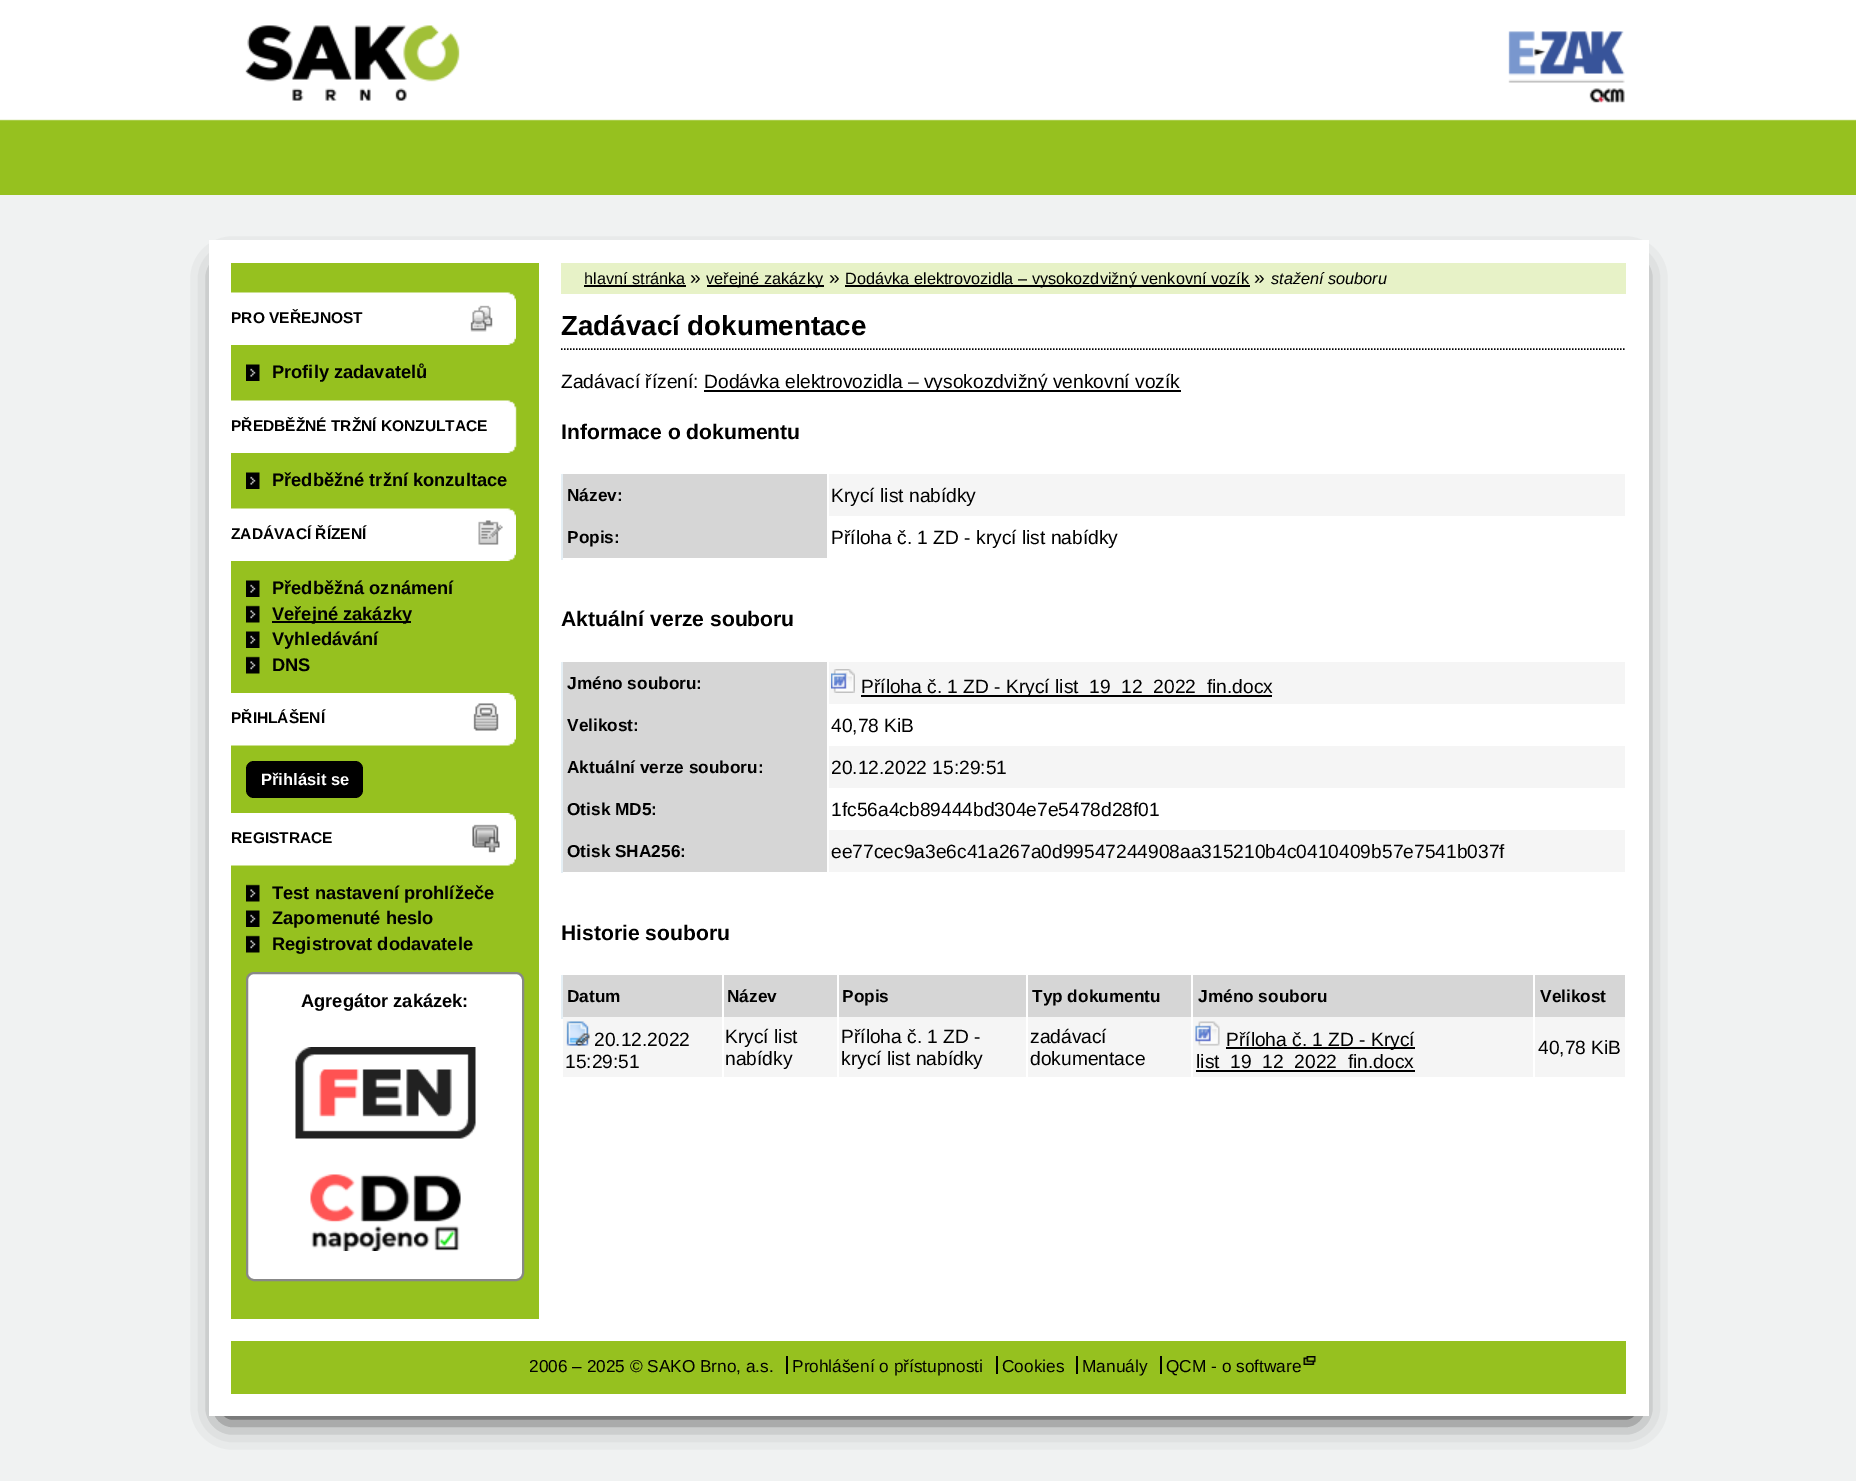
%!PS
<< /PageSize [1856 1481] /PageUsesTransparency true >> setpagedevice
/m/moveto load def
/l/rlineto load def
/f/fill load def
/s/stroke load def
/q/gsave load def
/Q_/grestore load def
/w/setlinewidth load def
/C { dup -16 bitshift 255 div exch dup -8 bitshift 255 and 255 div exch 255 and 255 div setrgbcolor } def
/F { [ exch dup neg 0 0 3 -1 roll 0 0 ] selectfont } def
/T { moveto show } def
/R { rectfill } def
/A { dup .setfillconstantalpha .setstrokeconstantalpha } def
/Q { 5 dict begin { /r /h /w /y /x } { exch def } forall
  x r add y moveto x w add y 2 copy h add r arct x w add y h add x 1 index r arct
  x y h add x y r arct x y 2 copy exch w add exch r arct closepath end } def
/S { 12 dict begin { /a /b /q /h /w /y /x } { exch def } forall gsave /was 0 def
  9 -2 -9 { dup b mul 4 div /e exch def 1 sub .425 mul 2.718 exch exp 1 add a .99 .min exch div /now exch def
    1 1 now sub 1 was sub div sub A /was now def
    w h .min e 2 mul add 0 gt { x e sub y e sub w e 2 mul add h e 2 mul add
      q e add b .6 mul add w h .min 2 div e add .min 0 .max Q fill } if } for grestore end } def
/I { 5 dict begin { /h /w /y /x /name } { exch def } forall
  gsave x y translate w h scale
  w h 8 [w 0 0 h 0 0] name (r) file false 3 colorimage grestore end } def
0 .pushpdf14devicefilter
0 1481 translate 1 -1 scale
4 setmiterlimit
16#F0F2F2 C
0 0 1856 1481 R
(1.rgb) 0 0 1856 195 I
(2.rgb) 209 5 251 96 I
(3.rgb) 1508 31 117 72 I
16#000000 C
224 270 1410 1146 0 15 1 S
16#FFFFFF C
209 240 1440 1176 R
16#96C11F C
231 263 308 1056 R
(4.rgb) 231 292 285 53 I
/LiberationSans-Bold 15.5 F
16#000000 C
(PRO VEŘEJNOST) 231 323 T
(5.rgb) 246 364 14 17 I
/LiberationSans-Bold 18.25 F
(Profily zadavatelů) 272 378 T
(6.rgb) 231 400 286 53 I
/LiberationSans-Bold 15.5 F
(PŘEDBĚŽNÉ TRŽNÍ KONZULTACE) 231 431 T
(5.rgb) 246 472 14 17 I
/LiberationSans-Bold 18.25 F
(Předběžné tržní konzultace) 272 486 T
(7.rgb) 231 508 285 53 I
/LiberationSans-Bold 15.5 F
(ZADÁVACÍ ŘÍZENÍ) 231 539 T
(5.rgb) 246 580 14 17 I
/LiberationSans-Bold 18.25 F
(Předběžná oznámení) 272 594 T
(8.rgb) 246 605 14 18 I
272 621 139 2 R
(Veřejné zakázky) 272 620 T
(5.rgb) 246 631 14 17 I
(Vyhledávání) 272 645 T
(8.rgb) 246 656 14 18 I
(DNS) 272 671 T
(9.rgb) 231 693 285 53 I
/LiberationSans-Bold 15.5 F
(PŘIHLÁŠENÍ) 231 723 T
246 761 117 37 8 Q f
/LiberationSans-Bold 16.5 F
16#FFFFFF C
(Přihlásit se) 261 785 T
(10.rgb) 231 813 285 53 I
/LiberationSans-Bold 15.5 F
16#000000 C
(REGISTRACE) 231 843 T
(8.rgb) 246 884 14 18 I
/LiberationSans-Bold 18.25 F
(Test nastavení prohlížeče) 272 899 T
(5.rgb) 246 910 14 17 I
(Zapomenuté heslo) 272 924 T
(8.rgb) 246 935 14 18 I
(Registrovat dodavatele) 272 950 T
16#FFFFFF C
247 973 276 307 7 Q q f Q_
16#888888 C
2 w
s
16#000000 C
(Agregátor zakázek:) 301 1007 T
(11.rgb) 295 1047 181 92 I
(12.rgb) 310 1174 151 77 I
16#E7F2C7 C
561 263 1065 31 R
/LiberationSans-Regular 16.3 F
16#000000 C
(hlavní stránka) 584 284 T
584 285 102 2 R
/LiberationSans-Regular 19.2 F
(») 690 284 T
707 285 117 2 R
/LiberationSans-Regular 16.3 F
(veřejné zakázky) 706 284 T
/LiberationSans-Regular 19.2 F
(») 829 284 T
845 285 405 2 R
/LiberationSans-Regular 16.3 F
(Dodávka elektrovozidla – vysokozdvižný venkovní vozík) 845 284 T
/LiberationSans-Regular 19.2 F
(») 1254 284 T
/LiberationSans-Italic 16.3 F
(stažení souboru) 1271 284 T
1.5 w
[1.5 1.5] 0 setdash
561 349 m 1065 0 l s
/LiberationSans-Bold 27.75 F
(Zadávací dokumentace) 561 335 T
/LiberationSans-Regular 19.2 F
(Zadávací řízení:) 561 388 T
704 390 477 2 R
(Dodávka elektrovozidla – vysokozdvižný venkovní vozík) 704 388 T
/LiberationSans-Bold 21.1 F
(Informace o dokumentu) 561 439 T
16#F5F5F5 C
829 474 796 42 R
16#D6D6D6 C
563 474 264 84 R
/LiberationSans-Bold 17.25 F
16#000000 C
(Název:) 567 501 T
/LiberationSans-Regular 19.2 F
(Krycí list nabídky) 831 502 T
16#E5EFF5 C
561 474 2 86 R
/LiberationSans-Bold 17.25 F
16#000000 C
(Popis:) 567 543 T
/LiberationSans-Regular 19.2 F
(Příloha č. 1 ZD - krycí list nabídky) 831 544 T
/LiberationSans-Bold 21.1 F
(Aktuální verze souboru) 561 626 T
16#F5F5F5 C
829 662 796 42 R
16#D6D6D6 C
563 662 264 210 R
/LiberationSans-Bold 17.25 F
16#000000 C
(Jméno souboru:) 567 689 T
(13.rgb) 831 669 24 24 I
861 695 411 2 R
/LiberationSans-Regular 19.2 F
(Příloha č. 1 ZD - Krycí list_19_12_2022_fin.docx) 861 693 T
/LiberationSans-Bold 17.25 F
(Velikost:) 567 731 T
/LiberationSans-Regular 19.2 F
(40,78 KiB) 831 732 T
16#F5F5F5 C
829 746 796 42 R
/LiberationSans-Bold 17.25 F
16#000000 C
(Aktuální verze souboru:) 567 773 T
/LiberationSans-Regular 19.2 F
(20.12.2022 15:29:51) 831 774 T
/LiberationSans-Bold 17.25 F
(Otisk MD5:) 567 815 T
/LiberationSans-Regular 19.2 F
(1fc56a4cb89444bd304e7e5478d28f01) 831 816 T
16#F5F5F5 C
829 830 796 42 R
16#E5EFF5 C
561 662 2 211 R
/LiberationSans-Bold 17.25 F
16#000000 C
(Otisk SHA256:) 567 857 T
/LiberationSans-Regular 19.2 F
(ee77cec9a3e6c41a267a0d99547244908aa315210b4c0410409b57e7541b037f) 831 858 T
/LiberationSans-Bold 21.1 F
(Historie souboru) 561 940 T
16#D6D6D6 C
563 975 159 42 R
16#E5EFF5 C
561 975 2 44 R
/LiberationSans-Bold 17.25 F
16#000000 C
(Datum) 567 1002 T
16#D6D6D6 C
724 975 113 42 R
16#000000 C
(Název) 727 1002 T
16#D6D6D6 C
839 975 187 42 R
16#000000 C
(Popis) 842 1002 T
16#D6D6D6 C
1028 975 163 42 R
16#000000 C
(Typ dokumentu) 1032 1002 T
16#D6D6D6 C
1193 975 340 42 R
16#000000 C
(Jméno souboru) 1198 1002 T
16#D6D6D6 C
1535 975 90 42 R
16#000000 C
(Velikost) 1540 1002 T
16#F5F5F5 C
563 1017 1062 60 R
16#FFFFFF C
722 1017 2 62 R
(14.rgb) 566 1021 24 25 I
/LiberationSans-Regular 19.2 F
16#000000 C
(20.12.2022) 594 1046 T
(15:29:51) 565 1068 T
16#FFFFFF C
837 1017 2 62 R
16#000000 C
(Krycí list) 725 1043 T
(nabídky) 725 1065 T
16#FFFFFF C
1026 1017 2 62 R
16#000000 C
(Příloha č. 1 ZD -) 841 1043 T
(krycí list nabídky) 841 1065 T
16#FFFFFF C
1191 1017 2 62 R
16#000000 C
(zadávací) 1030 1043 T
(dokumentace) 1030 1065 T
16#FFFFFF C
1533 1017 2 62 R
(15.rgb) 1195 1021 25 25 I
16#000000 C
1226 1047 189 2 R
(Příloha č. 1 ZD - Krycí) 1226 1046 T
1196 1070 219 2 R
(list_19_12_2022_fin.docx) 1196 1068 T
(40,78 KiB) 1538 1054 T
16#96C11F C
231 1341 1395 53 R
/LiberationSans-Regular 17.25 F
16#000000 C
(2006 – 2025 © SAKO Brno, a.s.) 529 1372 T
786 1356 2 18 R
(Prohlášení o přístupnosti) 792 1372 T
996 1356 2 18 R
(Cookies) 1002 1372 T
1076 1356 2 18 R
(Manuály) 1082 1372 T
1160 1356 2 18 R
(QCM - o software) 1166 1372 T
(16.rgb) 1303 1356 13 9 I
.poppdf14devicefilter showpage
